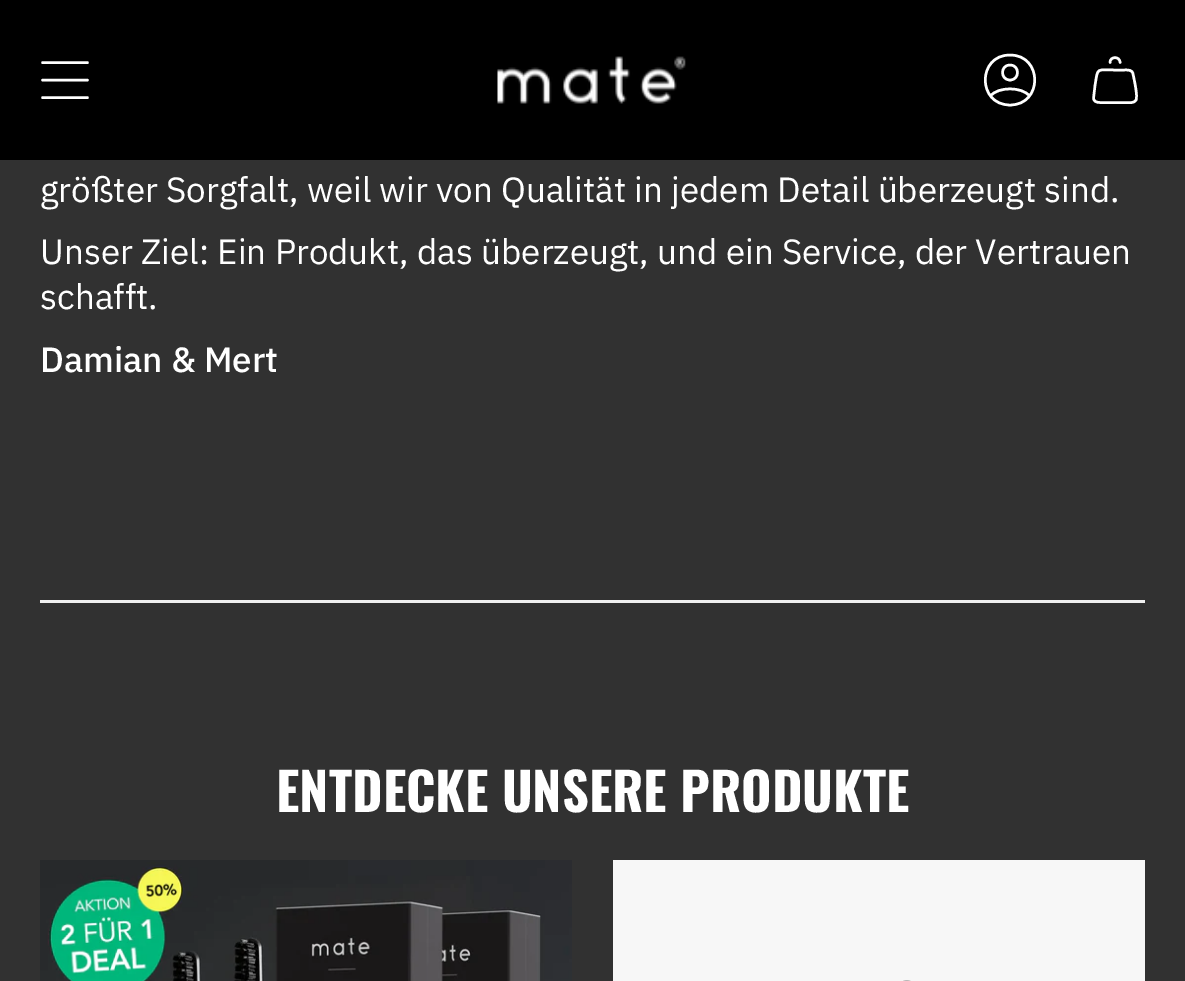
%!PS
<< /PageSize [1185 981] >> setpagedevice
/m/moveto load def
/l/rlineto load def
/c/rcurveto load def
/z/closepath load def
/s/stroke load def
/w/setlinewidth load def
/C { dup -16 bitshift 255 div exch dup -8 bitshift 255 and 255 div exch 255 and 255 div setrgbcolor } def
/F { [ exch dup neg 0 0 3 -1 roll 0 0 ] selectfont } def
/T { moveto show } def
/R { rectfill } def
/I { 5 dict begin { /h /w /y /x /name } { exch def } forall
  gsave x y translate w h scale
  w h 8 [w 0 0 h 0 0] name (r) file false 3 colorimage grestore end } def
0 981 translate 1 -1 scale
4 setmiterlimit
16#313131 C
0 0 1185 981 R
16#000000 C
0 0 1185 160 R
16#FFFFFF C
2.5 w
1 setlinecap
1 setlinejoin
42.5 62.5 m 45 0 l 42.5 80 m 45 0 l 42.5 97.5 m 45 0 l s
(1.rgb) 497 56 189 48 I
1010 55 m -33 0 -33 50 0 50 c 33 0 33 -50 0 -50 c z 990.5 96 m 7.5 -9.5 31.5 -9.5 39 0 c 1010 80 m 10 0 10 -15 0 -15 c -10 0 -10 15 0 15 c z s
1133 74 m 1 4.5 5 22.5 3 26 c -2 3.5 -6.5 2.5 -10 2.5 c -22 0 l -4 0 -9.5 1 -10.5 -4 c 1.5 -13 l 3 -18.5 1 -15.5 20 -15.5 c 9 0 l 3.5 0 8.5 -.5 9 4 c z 1120 62.5 m 0 -6.5 -10 -6.5 -10 0 c s
/IBMPlexSans-Regular 35 F
(größter Sorgfalt, weil wir von Qualität in jedem Detail überzeugt sind.) 40 202 T
(Unser Ziel: Ein Produkt, das überzeugt, und ein Service, der Vertrauen) 40 264 T
(schafft.) 40 309 T
/IBMPlexSans-Medium 35 F
(Damian & Mert) 40 372 T
16#F0F0F0 C
40 600 1105 3 R
/Oswald-Bold 52.25 F
16#FFFFFF C
(ENTDECKE UNSERE PRODUKTE) 276 812 T
(2.rgb) 40 860 532 121 I
16#F7F7F7 C
613 860 532 121 R
(3.rgb) 903 980 8 1 I
showpage
